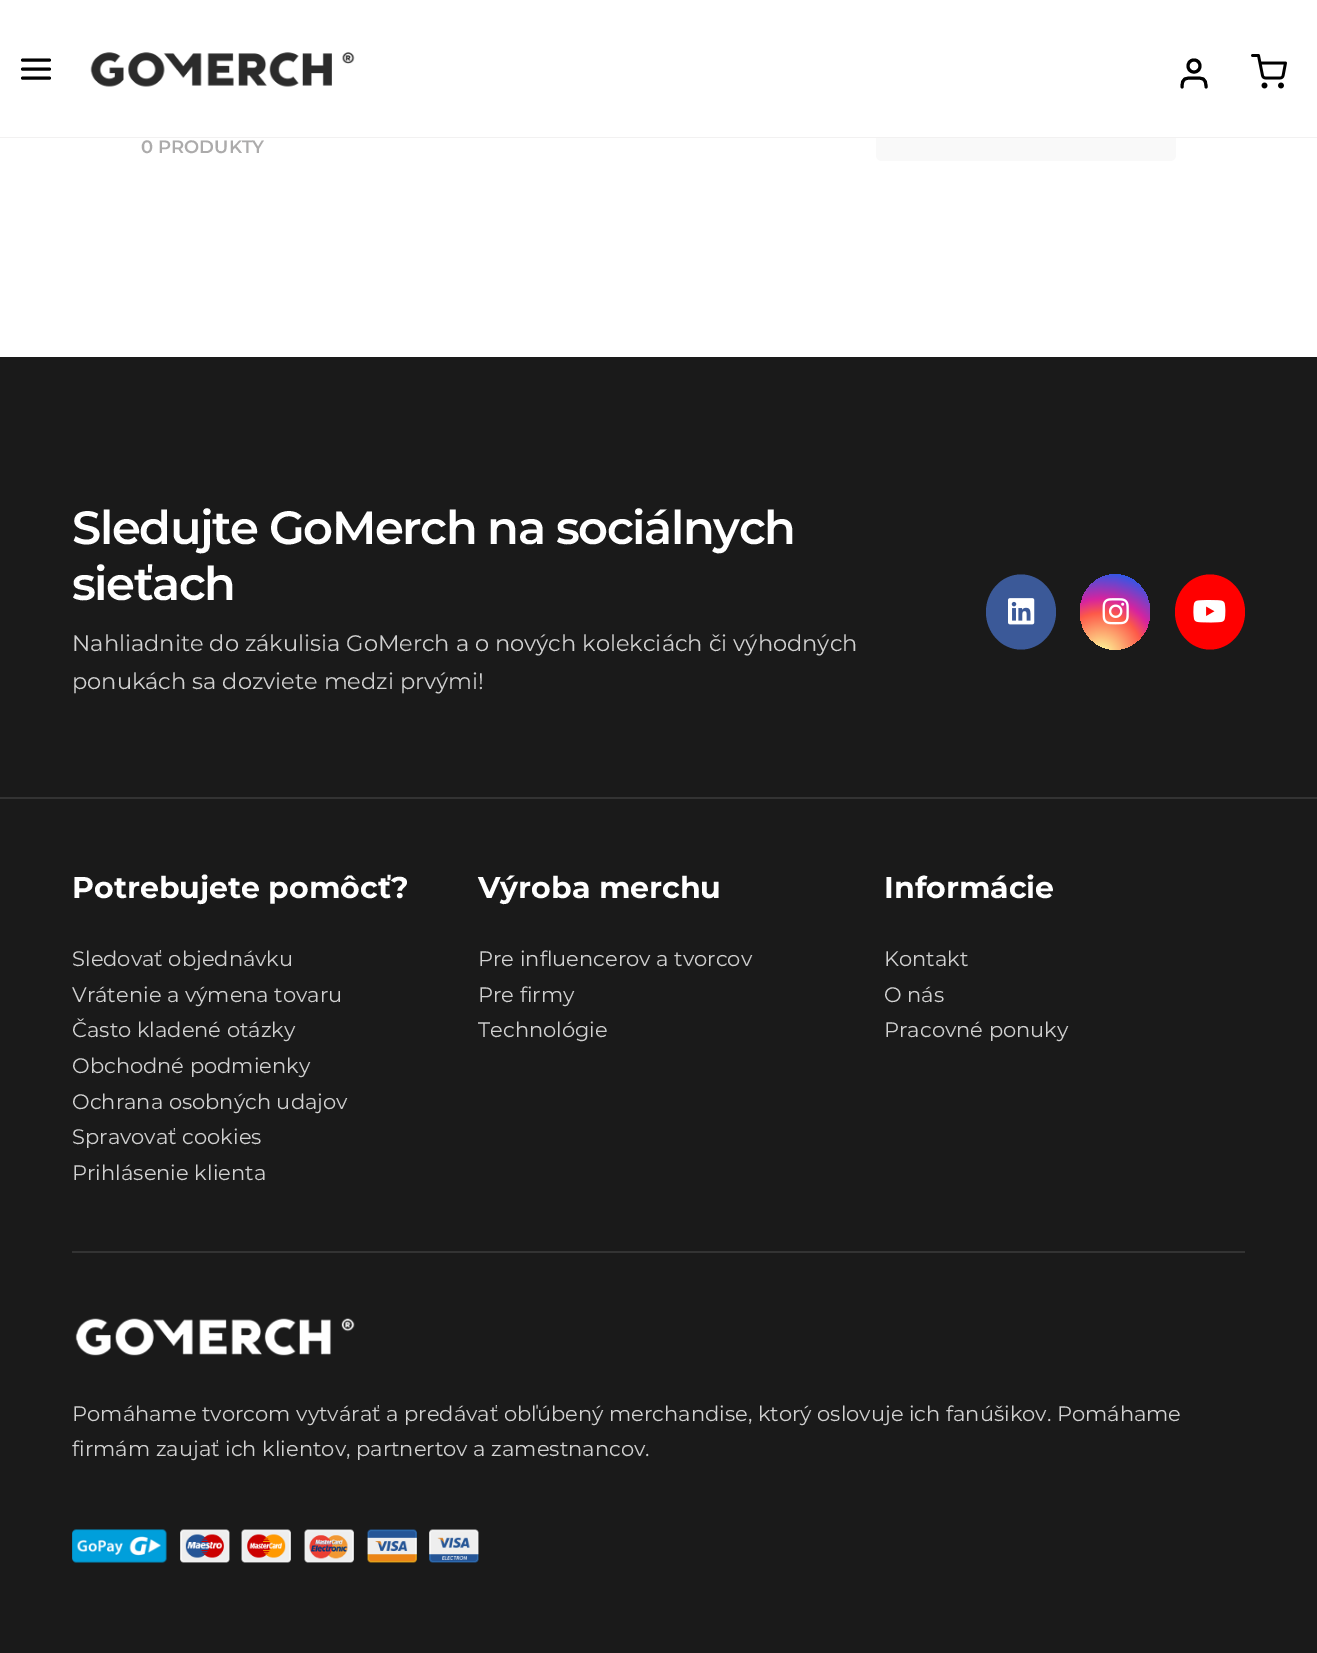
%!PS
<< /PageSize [1317 1653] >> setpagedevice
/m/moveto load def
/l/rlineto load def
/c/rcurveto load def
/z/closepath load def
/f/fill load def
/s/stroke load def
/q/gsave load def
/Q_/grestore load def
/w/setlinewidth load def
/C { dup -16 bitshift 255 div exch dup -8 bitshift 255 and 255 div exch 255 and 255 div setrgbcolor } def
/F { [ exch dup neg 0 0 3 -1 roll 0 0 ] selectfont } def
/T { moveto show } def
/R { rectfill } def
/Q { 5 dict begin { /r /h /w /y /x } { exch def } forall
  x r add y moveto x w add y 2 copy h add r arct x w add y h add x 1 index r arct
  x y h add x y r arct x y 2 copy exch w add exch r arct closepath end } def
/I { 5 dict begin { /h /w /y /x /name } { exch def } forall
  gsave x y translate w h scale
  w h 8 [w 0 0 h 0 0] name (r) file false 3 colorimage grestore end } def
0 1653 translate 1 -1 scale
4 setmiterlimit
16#FFFFFF C
0 0 1317 1653 R
16#F9F9F9 C
876 95 300 66 6 Q f
16#FFFFFF C
876 95 300 42 R
16#000000 C
3 w
1 setlinecap
1 setlinejoin
22.5 69 m 27 0 l 22.5 60 m 27 0 l 22.5 78 m 27 0 l s
(1.rgb) 90 52 265 35 I
1206 87 m 0 -9.5 -3.5 -9 -12 -9 c -8.5 0 -12 -.5 -12 9 c 1194 72 m 8 0 8 -12 0 -12 c -8 0 -8 12 0 12 c z s
(2.rgb) 1251 54 36 35 I
16#F2F1F1 C
0 137 1317 1 R
/Montserrat-SemiBold 18 F
16#ACABAB C
(0 PRODUKTY) 141 153 T
16#1A1A1A C
0 357 1317 440 R
/Montserrat-SemiBold 46.5 F
16#FFFFFF C
72 544 m -1.5 0 (Sledujte GoMerch na sociálnych) ashow
72 600 m -1.5 0 (sieťach) ashow
/Montserrat-Regular 22.5 F
16#D1D1D1 C
(Nahliadnite do zákulisia GoMerch a o nových kolekciách či výhodných) 72 651 T
(ponukách sa dozviete medzi prvými!) 72 689 T
16#3B5998 C
1021 574.5 m 19.5 0 35 17 35 37.5 c 0 20.5 -15.5 37.5 -35 37.5 c -19.5 0 -35 -17 -35 -37.5 c 0 -20.5 15.5 -37.5 35 -37.5 c z f
(3.rgb) 1008 598 27 27 I
q 1115 574.5 m 19.5 0 35 17 35 37.5 c 0 20.5 -15.5 37.5 -35 37.5 c -19.5 0 -35 -17 -35 -37.5 c 0 -20.5 15.5 -37.5 35 -37.5 c z clip newpath 1101 655 translate 94 94 scale
<< /ShadingType 3 /ColorSpace /DeviceRGB /Coords [0 0 0 0 0 1] /Extend [true true] /Function << /FunctionType 3 /Domain [0 1] /Functions [<< /FunctionType 2 /Domain [0 1] /C0 [.992 .957 .592] /C1 [.992 .957 .592] /N 1 >> << /FunctionType 2 /Domain [0 1] /C0 [.992 .957 .592] /C1 [.992 .349 .286] /N 1 >> << /FunctionType 2 /Domain [0 1] /C0 [.992 .349 .286] /C1 [.839 .141 .624] /N 1 >> << /FunctionType 2 /Domain [0 1] /C0 [.839 .141 .624] /C1 [.157 .353 .922] /N 1 >> << /FunctionType 2 /Domain [0 1] /C0 [.157 .353 .922] /C1 [.157 .353 .922] /N 1 >>] /Bounds [.05 .45 .6 .9] /Encode [0 1 0 1 0 1 0 1 0 1] >> >> shfill Q_
(4.rgb) 1102 598 27 27 I
16#FF0000 C
1210 574.5 m 19.5 0 35 17 35 37.5 c 0 20.5 -15.5 37.5 -35 37.5 c -19.5 0 -35 -17 -35 -37.5 c 0 -20.5 15.5 -37.5 35 -37.5 c z f
(5.rgb) 1193 600 33 23 I
16#1A1A1A C
0 799 1317 854 R
16#333333 C
0 797 1317 2 R
/Montserrat-Bold 30 F
16#FFFFFF C
(Potrebujete pomôcť?) 72 898 T
/Montserrat-Regular 21 F
16#D1D1D1 C
(Sledovať objednávku) 72 966 T
(Vrátenie a výmena tovaru) 72 1002 T
(Často kladené otázky) 72 1037 T
(Obchodné podmienky) 72 1073 T
(Ochrana osobných udajov) 72 1109 T
(Spravovať cookies) 72 1144 T
(Prihlásenie klienta) 72 1180 T
/Montserrat-Bold 30 F
16#FFFFFF C
(Výroba merchu) 478 898 T
/Montserrat-Regular 21 F
16#D1D1D1 C
(Pre influencerov a tvorcov) 478 966 T
(Pre firmy) 478 1002 T
(Technológie) 478 1037 T
/Montserrat-Bold 30 F
16#FFFFFF C
(Informácie) 884 898 T
/Montserrat-Regular 21 F
16#D1D1D1 C
(Kontakt) 884 966 T
(O nás) 884 1002 T
(Pracovné ponuky) 884 1037 T
16#333333 C
72 1251 1173 2 R
(6.rgb) 75 1318 280 38 I
16#D1D1D1 C
(Pomáhame tvorcom vytvárať a predávať obľúbený merchandise, ktorý oslovuje ich fanúšikov. Pomáhame) 72 1421 T
(firmám zaujať ich klientov, partnertov a zamestnancov.) 72 1456 T
(7.rgb) 72 1529 95 34 I
(8.rgb) 180 1529 50 34 I
(9.rgb) 241 1529 50 34 I
(10.rgb) 304 1529 50 34 I
(11.rgb) 367 1529 50 34 I
(12.rgb) 429 1529 50 34 I
showpage
